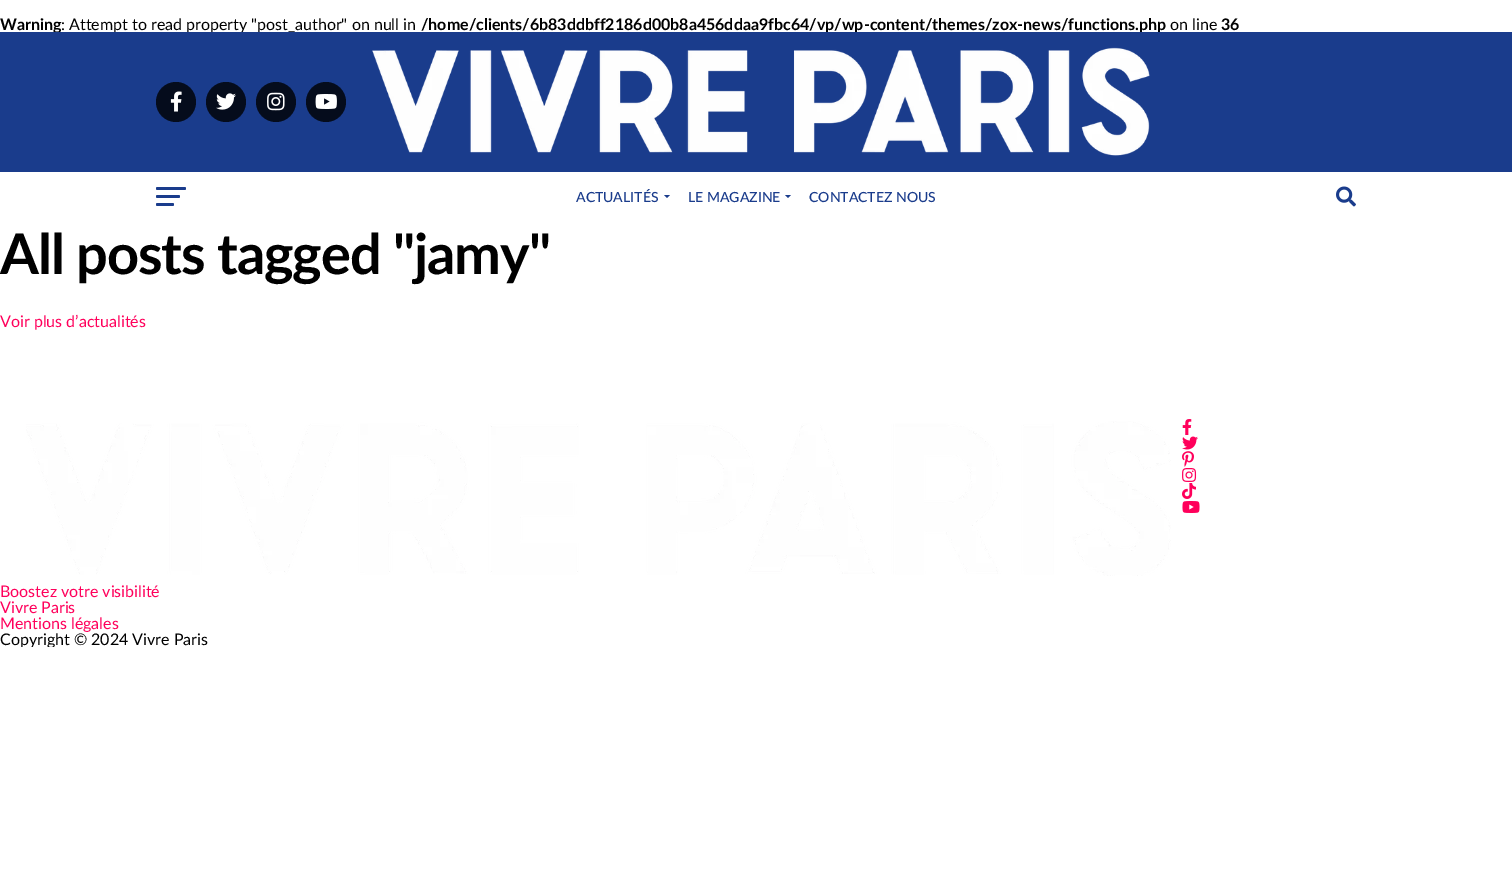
%!PS
<< /PageSize [1512 879] >> setpagedevice
/m/moveto load def
/l/rlineto load def
/z/closepath load def
/f/fill load def
/q/gsave load def
/Q_/grestore load def
/C { dup -16 bitshift 255 div exch dup -8 bitshift 255 and 255 div exch 255 and 255 div setrgbcolor } def
/F { [ exch dup neg 0 0 3 -1 roll 0 0 ] selectfont } def
/T { moveto show } def
/R { rectfill } def
/O { newpath 0 360 arc closepath } def
/Q { 5 dict begin { /r /h /w /y /x } { exch def } forall
  x r add y moveto x w add y 2 copy h add r arct x w add y h add x 1 index r arct
  x y h add x y r arct x y 2 copy exch w add exch r arct closepath end } def
/I { 5 dict begin { /h /w /y /x /name } { exch def } forall
  gsave x y translate w h scale
  w h 8 [w 0 0 h 0 0] name (r) file false 3 colorimage grestore end } def
0 879 translate 1 -1 scale
4 setmiterlimit
16#FFFFFF C
0 0 1512 879 R
/Lato-Bold 16 F
16#000000 C
(Warning) 0 30 T
/Lato-Regular 16 F
(: Attempt to read property "post_author" on null in) 61 30 T
/Lato-Bold 16 F
(/home/clients/6b83ddbff2186d00b8a456ddaa9fbc64/vp/wp-content/themes/zox-news/functions.php) 421 30 T
/Lato-Regular 16 F
(on line) 1170 30 T
/Lato-Bold 16 F
(36) 1221 30 T
16#1A3C8C C
0 32 1512 140 R
16#050C1C C
176 102 20 O f
(1.rgb) 170 91 12 21 I
226 102 20 O f
(2.rgb) 216 93 20 17 I
276 102 20 O f
(3.rgb) 267 92 18 19 I
326 102 20 O f
(4.rgb) 315 94 22 15 I
(5.rgb) 372 47 778 109 I
16#1A3C8C C
156 187 30 3 1.5 Q f
156 195 24 3 1.5 Q f
156 203 18 3 1.5 Q f
/Lato-Medium 14 F
(ACTUALITÉS) 576 202 T
664 195 m 6 0 l -3 3 l z f
(LE MAGAZINE) 688 202 T
785 195 m 6 0 l -3 3 l z f
(CONTACTEZ NOUS) 809 202 T
(6.rgb) 1336 186 20 21 I
/Lato-Bold 56 F
16#000000 C
0 274 m -1.1 0 (All posts tagged "jamy") ashow
/Lato-Regular 16 F
16#FF005B C
(Voir plus d’actualités) 0 327 T
(7.rgb) 26 421 1145 155 I
(8.rgb) 1182 419 10 16 I
(9.rgb) 1182 436 16 14 I
(10.rgb) 1182 451 12 16 I
(11.rgb) 1182 468 15 14 I
(12.rgb) 1182 483 14 16 I
(13.rgb) 1182 501 18 12 I
(Boostez votre visibilité) 0 597 T
(Vivre Paris) 0 613 T
(Mentions légales) 0 629 T
q
0 32 1512 615 rectclip
16#000000 C
(Copyright © 2024 Vivre Paris) 0 645 T
Q_
showpage
